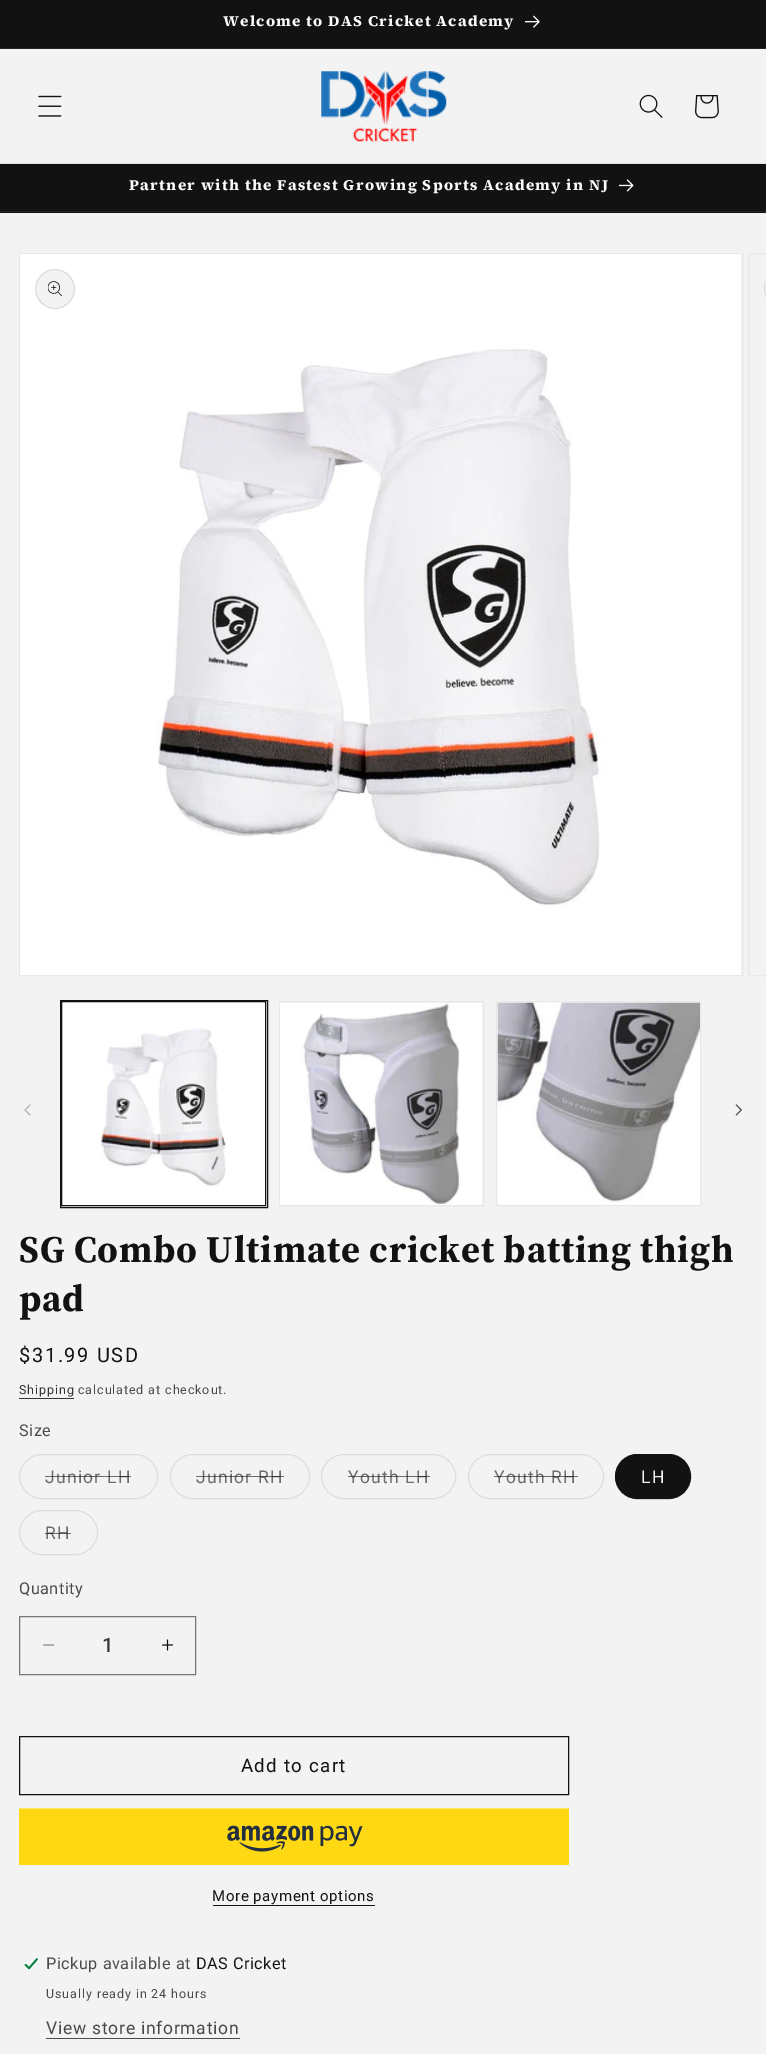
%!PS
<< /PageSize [766 2054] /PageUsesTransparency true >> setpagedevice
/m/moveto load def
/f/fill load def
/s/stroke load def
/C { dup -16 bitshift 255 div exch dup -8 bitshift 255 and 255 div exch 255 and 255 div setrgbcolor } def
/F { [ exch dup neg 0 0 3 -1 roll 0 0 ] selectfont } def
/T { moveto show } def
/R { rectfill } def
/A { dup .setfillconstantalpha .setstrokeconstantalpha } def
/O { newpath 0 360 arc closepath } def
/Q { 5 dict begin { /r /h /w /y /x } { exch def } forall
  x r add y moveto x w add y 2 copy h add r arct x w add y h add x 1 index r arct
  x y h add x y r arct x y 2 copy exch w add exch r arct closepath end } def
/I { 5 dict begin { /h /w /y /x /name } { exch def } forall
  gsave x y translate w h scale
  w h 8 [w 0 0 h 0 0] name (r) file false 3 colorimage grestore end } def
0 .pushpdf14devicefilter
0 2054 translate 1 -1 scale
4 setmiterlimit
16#121212 C
0 0 766 2054 R
16#252525 C
0 48 766 1 R
/SourceSerif4-Bold 15 F
16#FDFDFF C
223 26 m 1.25 0 (Welcome to DAS Cricket Academy) ashow
(1.rgb) 525 15 15 13 I
16#F3F3F3 C
0 49 766 114 R
16#E1E1E1 C
0 163 766 1 R
(2.rgb) 38 95 24 22 I
(3.rgb) 321 71 126 71 I
(4.rgb) 639 94 24 24 I
(5.rgb) 695 95 24 24 I
16#252525 C
0 211 766 1 R
16#FDFDFF C
129 190 m 1.25 0 (Partner with the Fastest Growing Sports Academy in NJ) ashow
(6.rgb) 619 179 15 13 I
16#F3F3F3 C
0 213 766 1841 R
16#E8E8E8 C
19.5 253.5 723 722 rectstroke
(7.rgb) 20 254 721 721 I
16#F3F3F3 C
55 289 20 O f
0.1 A
16#121212 C
55 289 19.5 O s
1 A
(8.rgb) 48 281 14 16 I
16#E8E8E8 C
748.5 253.5 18 722 rectstroke
16#DDDDDD C
764.5 269.5 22 39 19.5 Q s
(9.rgb) 24 1104 7 12 I
16#121212 C
60.5 1000.5 207 207 rectstroke
61.5 1001.5 204 204 rectstroke
(10.rgb) 63 1003 202 202 I
16#E8E8E8 C
279.5 1001.5 204 204 rectstroke
(11.rgb) 280 1003 202 202 I
496.5 1001.5 204 204 rectstroke
(12.rgb) 497 1002 203 203 I
(13.rgb) 735 1104 7 12 I
/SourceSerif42-Bold 37.5 F
16#121212 C
19 1262 m .75 0 (SG Combo Ultimate cricket batting thigh) ashow
19 1311 m .75 0 (pad) ashow
/Roboto-Regular 20 F
19 1362 m 1.6 0 ($31.99 USD) ashow
/Roboto-Regular 12.5 F
16#343434 C
19 1394 m .9 0 (Shipping) ashow
19 1398 55 1 R
16#4A4A4A C
78 1394 m .9 0 (calculated at checkout.) ashow
/Roboto-Regular 16.25 F
19 1436 m .5 0 (Size) ashow
16#DDDDDD C
19.5 1454.5 138 44 22 Q s
/Roboto-Regular 17.5 F
16#6C6C6C C
45 1483 m 1.25 0 (Junior LH) ashow
0.6 A
16#121212 C
45 1476 86 1 R
1 A
16#DDDDDD C
170.5 1454.5 139 44 22 Q s
16#6C6C6C C
196 1483 m 1.25 0 (Junior RH) ashow
0.6 A
16#121212 C
196 1476 88 1 R
1 A
16#DDDDDD C
321.5 1454.5 134 44 22 Q s
16#6C6C6C C
348 1483 m 1.25 0 (Youth LH) ashow
0.6 A
16#121212 C
348 1476 82 1 R
1 A
16#DDDDDD C
468.5 1454.5 135 44 22 Q s
16#6C6C6C C
494 1483 m 1.25 0 (Youth RH) ashow
0.6 A
16#121212 C
494 1476 84 1 R
1 A
615 1454 76 45 22.5 Q f
0.55 A
615.5 1454.5 75 44 22 Q s
1 A
16#F3F3F3 C
641 1483 m 1.25 0 (LH) ashow
16#DDDDDD C
19.5 1510.5 78 44 22 Q s
16#6C6C6C C
45 1539 m 1.25 0 (RH) ashow
0.6 A
16#121212 C
45 1533 26 1 R
/Roboto-Regular 16.25 F
1 A
16#4A4A4A C
19 1594 m .5 0 (Quantity) ashow
(14.rgb) 43 1644 12 2 I
(15.rgb) 162 1639 12 12 I
16#777777 C
19.5 1616.5 176 58 rectstroke
/Roboto-Medium 20 F
16#343434 C
(1) 102 1652 T
16#121212 C
19.5 1736.5 549 58 rectstroke
/Roboto-Regular 18.75 F
241 1772 m 1.25 0 (Add to cart) ashow
16#FFD814 C
19 1809 550 56 R
16#FFE872 C
19 1808 550 1 R
(16.rgb) 227 1825 136 27 I
/Roboto-Regular 15 F
16#121212 C
212 1901 m .6 0 (More payment options) ashow
213 1905 162 1 R
(17.rgb) 23 1957 16 14 I
/Roboto-Regular 16.25 F
16#4A4A4A C
46 1969 m .5 0 (Pickup available at) ashow
16#121212 C
196 1969 m .5 0 (DAS Cricket) ashow
/Roboto-Regular 12.5 F
16#4A4A4A C
46 1998 m .9 0 (Usually ready in 24 hours) ashow
/Roboto-Regular 17.5 F
46 2034 m .75 0 (View store information) ashow
46 2038 194 1 R
.poppdf14devicefilter showpage
